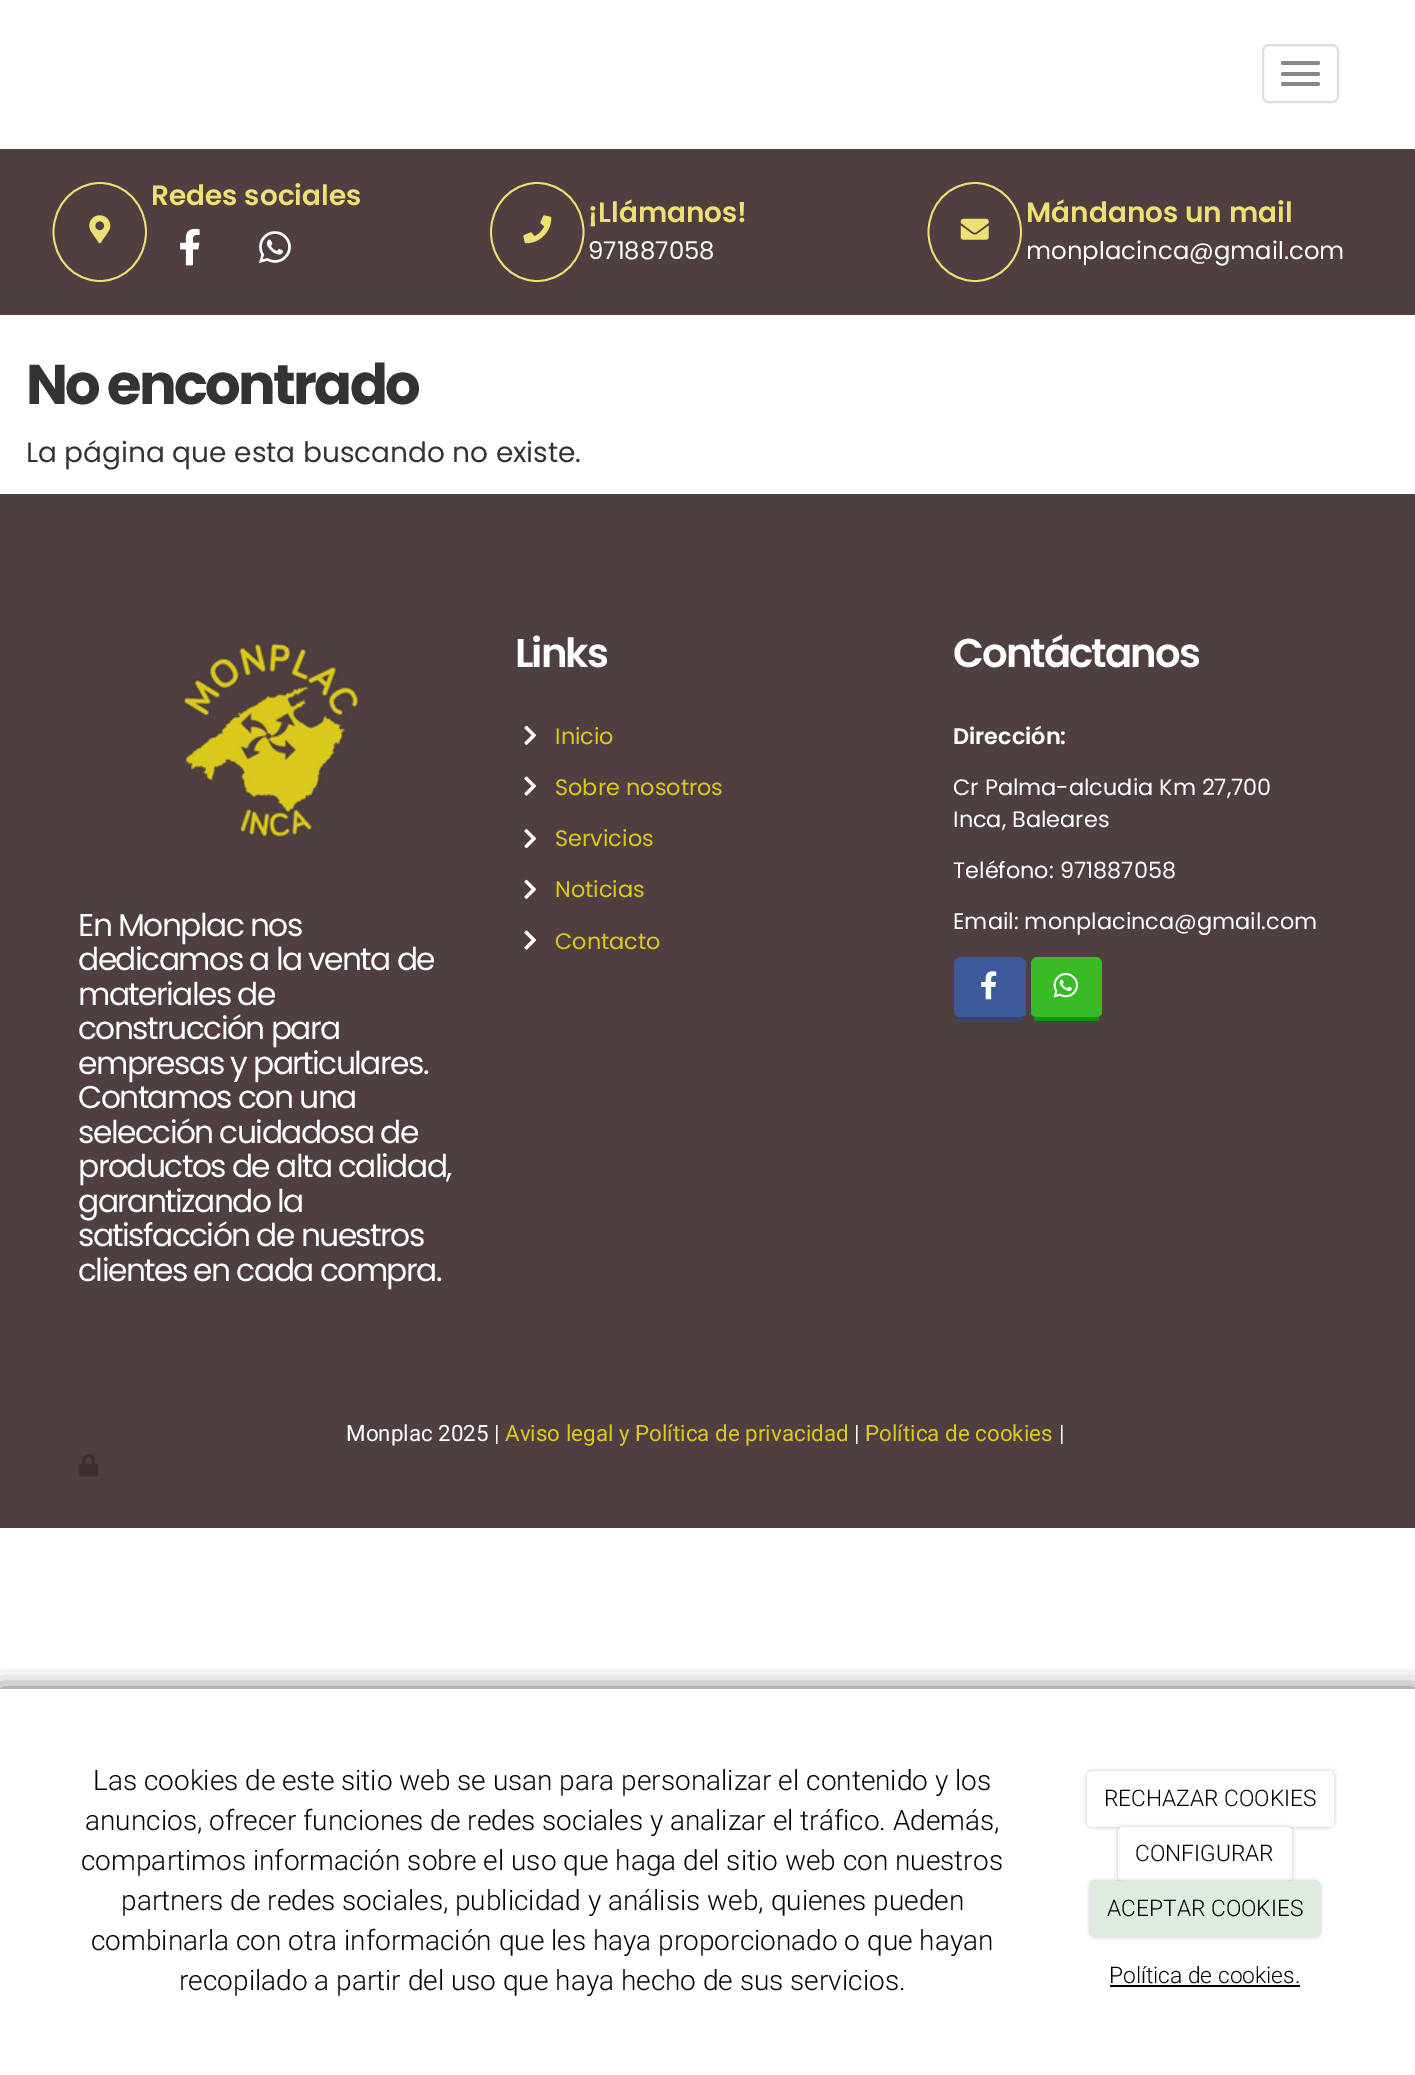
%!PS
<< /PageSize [1415 2075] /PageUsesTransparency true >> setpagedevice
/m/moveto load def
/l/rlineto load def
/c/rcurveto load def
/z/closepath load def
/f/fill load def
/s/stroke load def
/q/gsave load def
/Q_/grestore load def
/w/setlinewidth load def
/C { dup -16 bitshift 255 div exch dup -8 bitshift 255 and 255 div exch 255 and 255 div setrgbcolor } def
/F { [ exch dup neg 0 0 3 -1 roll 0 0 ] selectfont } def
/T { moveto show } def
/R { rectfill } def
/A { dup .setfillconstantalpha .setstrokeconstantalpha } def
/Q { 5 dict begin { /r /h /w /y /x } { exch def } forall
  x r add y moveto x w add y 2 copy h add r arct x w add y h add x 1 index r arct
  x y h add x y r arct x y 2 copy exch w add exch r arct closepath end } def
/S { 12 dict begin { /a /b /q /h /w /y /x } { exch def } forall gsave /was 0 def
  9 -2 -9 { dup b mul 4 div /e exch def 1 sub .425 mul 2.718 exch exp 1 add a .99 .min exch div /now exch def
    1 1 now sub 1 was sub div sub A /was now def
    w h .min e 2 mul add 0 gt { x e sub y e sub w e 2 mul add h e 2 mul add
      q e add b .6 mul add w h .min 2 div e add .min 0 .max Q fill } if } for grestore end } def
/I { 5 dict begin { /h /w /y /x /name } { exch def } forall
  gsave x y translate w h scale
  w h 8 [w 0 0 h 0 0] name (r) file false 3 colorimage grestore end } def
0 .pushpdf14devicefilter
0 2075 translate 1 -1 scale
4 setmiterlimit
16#FFFFFF C
0 0 1415 2075 R
16#DDDDDD C
2 w
1263 45 75 57 6 Q s
16#888888 C
1281 61 39 4 2 Q f
1281 72 39 4 2 Q f
1281 82 39 4 2 Q f
16#4F3F40 C
0 149 1415 166 R
16#ECE172 C
1.8 w
100 183 m 25.5 0 46 22 46 49 c 0 27 -20.5 49 -46 49 c -26 0 -46.5 -22 -46.5 -49 c 0 -27 20.5 -49 46.5 -49 c z s
(1.rgb) 89 215 22 29 I
/Poppins-SemiBold 28 F
(Redes sociales) 151 205 T
(2.rgb) 180 228 20 38 I
(3.rgb) 259 231 32 32 I
537 183 m 26 0 46.5 22 46.5 49 c 0 27 -20.5 49 -46.5 49 c -25.5 0 -46 -22 -46 -49 c 0 -27 20.5 -49 46 -49 c z s
(4.rgb) 523 215 29 29 I
(¡Llámanos!) 588 222 T
/Poppins-Regular 24.4 F
16#FEFEF9 C
(971887058) 588 259 T
16#ECE172 C
975 183 m 25.5 0 46 22 46 49 c 0 27 -20.5 49 -46 49 c -26 0 -46.5 -22 -46.5 -49 c 0 -27 20.5 -49 46.5 -49 c z s
(5.rgb) 960 218 29 22 I
/Poppins-SemiBold 28 F
(Mándanos un mail) 1026 222 T
/Poppins-Regular 24.4 F
16#FEFEF9 C
(monplacinca@gmail.com) 1026 259 T
/Poppins-Bold 56 F
16#333333 C
26 404 m -2.75 0 (No encontrado) ashow
/Poppins-Regular 28 F
(La página que esta buscando no existe.) 26 462 T
16#4F3F40 C
0 494 1415 1034 R
/Poppins-SemiBold 40.25 F
16#FFFFFF C
515 667 m -2 0 (Links) ashow
(6.rgb) 524 725 13 20 I
/Poppins-Regular 22.4 F
16#DBC91D C
(Inicio) 555 744 T
(7.rgb) 524 776 12 20 I
(Sobre nosotros) 555 795 T
(8.rgb) 524 829 13 20 I
(Servicios) 555 846 T
(6.rgb) 524 879 13 20 I
(Noticias) 555 897 T
(7.rgb) 524 930 12 20 I
(Contacto) 555 949 T
/Poppins-SemiBold 40.25 F
16#FFFFFF C
953 667 m -2 0 (Contáctanos) ashow
/Poppins-SemiBold 22.4 F
(Dirección:) 953 744 T
/Poppins-Regular 22.4 F
(Cr Palma-alcudia Km 27,700) 953 795 T
(Inca, Baleares) 953 827 T
(Teléfono: 971887058) 953 878 T
(Email: monplacinca@gmail.com) 953 929 T
16#3C5A9A C
961 957 m 57 0 l 4 0 8 3 8 7 c 0 49 l 0 2 -4 4 -8 4 c -57 0 l -4 0 -7 -2 -7 -4 c 0 -49 l 0 -4 3 -7 7 -7 c z f
16#2F4678 C
957 1017 65 4 R
(9.rgb) 981 971 16 29 I
16#39BB27 C
1038 957 m 58 0 l 3 0 6 3 6 7 c 0 49 l 0 2 -3 4 -6 4 c -58 0 l -4 0 -7 -2 -7 -4 c 0 -49 l 0 -4 3 -7 7 -7 c z f
16#0D9205 C
1034 1017 65 4 R
(10.rgb) 1053 973 25 25 I
(11.rgb) 182 642 177 196 I
/Poppins-Regular 31.4 F
16#FFFFFF C
78 936 m -1.6 0 (En Monplac nos) ashow
78 970 m -1.6 0 (dedicamos a la venta de) ashow
78 1005 m -1.6 0 (materiales de) ashow
78 1039 m -1.6 0 (construcción para) ashow
78 1074 m -1.6 0 (empresas y particulares.) ashow
78 1108 m -1.6 0 (Contamos con una) ashow
78 1143 m -1.6 0 (selección cuidadosa de) ashow
78 1177 m -1.6 0 (productos de alta calidad,) ashow
78 1212 m -1.6 0 (garantizando la) ashow
78 1246 m -1.6 0 (satisfacción de nuestros) ashow
78 1281 m -1.6 0 (clientes en cada compra.) ashow
/Roboto-Regular 22.4 F
(Monplac 2025 |) 346 1441 T
16#DBC91D C
(Aviso legal y Política de privacidad) 505 1441 T
16#FFFFFF C
(|) 854 1441 T
16#DBC91D C
(Política de cookies) 865 1441 T
16#FFFFFF C
(|) 1059 1441 T
(12.rgb) 78 1454 21 23 I
q
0 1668 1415 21 rectclip
16#000000 C
0 1689 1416 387 0 11.5 .6 S
Q_
/Roboto-Light 28 F
16#000000 C
(Las cookies de este sitio web se usan para personalizar el contenido y los) 93 1790 T
(anuncios, ofrecer funciones de redes sociales y analizar el tráfico. Además,) 85 1830 T
(compartimos información sobre el uso que haga del sitio web con nuestros) 81 1870 T
(partners de redes sociales, publicidad y análisis web, quienes pueden) 121 1910 T
(combinarla con otra información que les haya proporcionado o que hayan) 91 1950 T
(recopilado a partir del uso que haya hecho de sus servicios.) 179 1990 T
1087 1771 247 56 5 2 .25 S
16#FFFFFF C
1087 1771 247 56 5 Q f
/Roboto-Light 22.75 F
16#000000 C
(RECHAZAR COOKIES) 1104 1806 T
1118 1827 174 54 5 2 .25 S
16#FFFFFF C
1118 1827 174 54 5 Q f
16#000000 C
(CONFIGURAR) 1135 1861 T
1090 1881 230 56 5 2 .25 S
16#DCECDF C
1090 1881 230 56 5 Q f
16#000000 C
(ACEPTAR COOKIES) 1107 1916 T
(Política de cookies.) 1109 1983 T
1110 1985 190 2 R
.poppdf14devicefilter showpage
